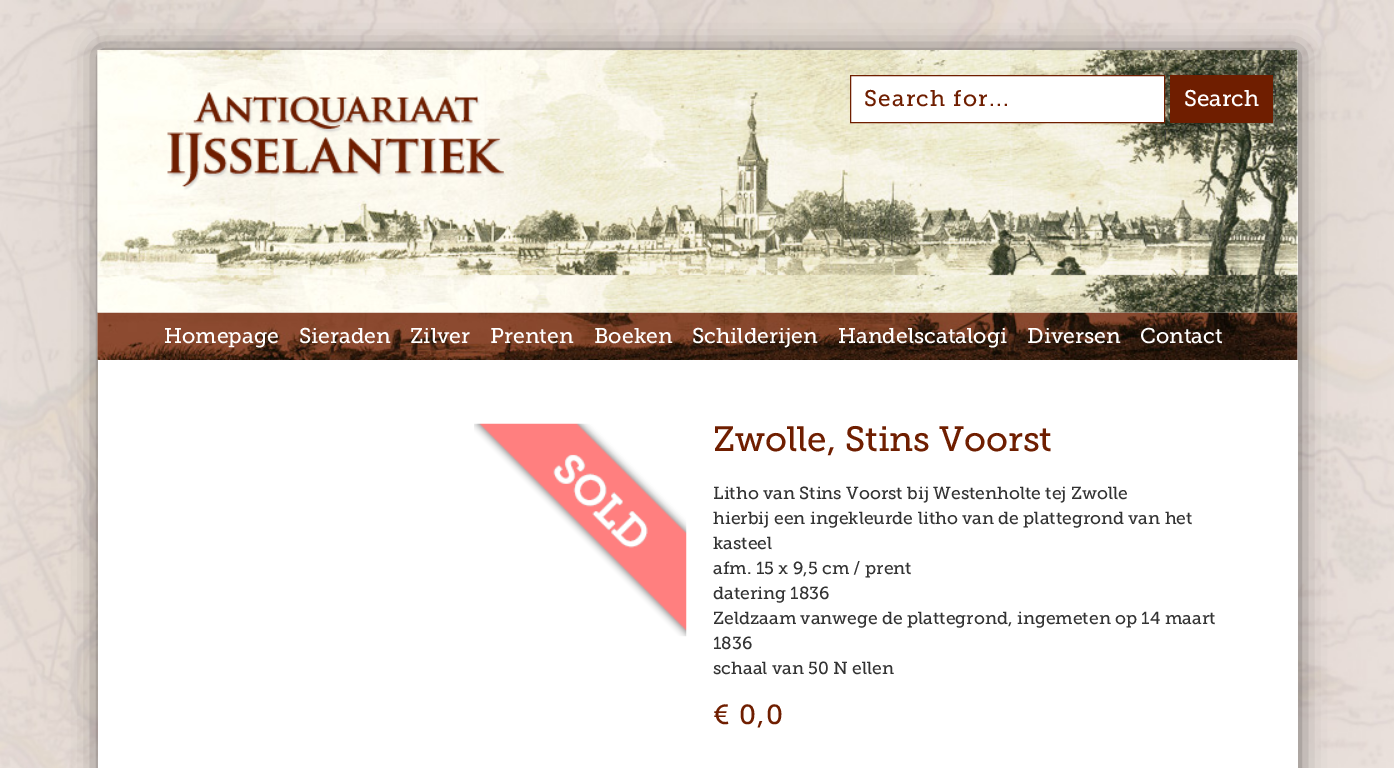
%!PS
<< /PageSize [1394 768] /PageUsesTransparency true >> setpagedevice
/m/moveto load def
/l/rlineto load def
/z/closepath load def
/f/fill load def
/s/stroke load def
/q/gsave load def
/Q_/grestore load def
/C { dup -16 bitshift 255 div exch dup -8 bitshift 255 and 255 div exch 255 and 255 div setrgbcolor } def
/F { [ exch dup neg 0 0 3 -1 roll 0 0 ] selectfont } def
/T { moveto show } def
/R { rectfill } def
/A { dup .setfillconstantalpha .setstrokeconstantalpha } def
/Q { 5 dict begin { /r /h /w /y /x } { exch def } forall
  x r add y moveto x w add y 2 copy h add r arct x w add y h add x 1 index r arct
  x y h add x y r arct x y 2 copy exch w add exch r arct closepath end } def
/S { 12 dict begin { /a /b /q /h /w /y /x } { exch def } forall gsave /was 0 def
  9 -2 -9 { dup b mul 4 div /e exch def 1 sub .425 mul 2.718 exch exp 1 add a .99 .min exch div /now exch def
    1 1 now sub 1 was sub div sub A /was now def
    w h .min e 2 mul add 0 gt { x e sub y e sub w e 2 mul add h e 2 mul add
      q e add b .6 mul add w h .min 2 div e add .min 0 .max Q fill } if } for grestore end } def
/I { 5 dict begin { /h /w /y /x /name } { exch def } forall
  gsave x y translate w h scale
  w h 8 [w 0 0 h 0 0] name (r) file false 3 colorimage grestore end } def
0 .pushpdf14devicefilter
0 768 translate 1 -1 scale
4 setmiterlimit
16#FFFFFF C
0 0 1394 768 R
(1.rgb) 0 0 1394 768 I
16#000000 C
99 51 1200 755 0 12.5 .5 S
16#FFFFFF C
98 50 1200 718 R
(4.rgb) 97 312 1201 48 I
(2.rgb) 97 50 1201 263 I
(3.rgb) 167 92 339 98 I
850.5 75.5 m 314 0 l 0 47 l -314 0 l z q f Q_
16#6F1E00 C
s
/MuseoSlab-Regular 22.5 F
864 106 m 1.25 0 (Search for...) ashow
1170 75 103 48 R
16#FFFFFF C
(Search) 1184 106 T
/MuseoSlab-Regular 21.25 F
(Homepage) 164 343 T
(Sieraden) 299 343 T
(Zilver) 410 343 T
(Prenten) 490 343 T
(Boeken) 594 343 T
(Schilderijen) 692 343 T
(Handelscatalogi) 838 343 T
(Diversen) 1027 343 T
(Contact) 1140 343 T
(5.rgb) 474 423 213 214 I
/MuseoSlab-Regular 35 F
16#6F1E00 C
(Zwolle, Stins Voorst) 713 451 T
/MuseoSlab-Regular 17.5 F
16#333333 C
(Litho van Stins Voorst bij Westenholte tej Zwolle) 713 499 T
(hierbij een ingekleurde litho van de plattegrond van het) 713 524 T
(kasteel) 713 549 T
(afm. 15 x 9,5 cm / prent) 713 574 T
(datering 1836) 713 599 T
(Zeldzaam vanwege de plattegrond, ingemeten op 14 maart) 713 624 T
(1836) 713 649 T
(schaal van 50 N ellen) 713 674 T
/MuseoSlab-Regular 27.5 F
16#6F1E00 C
713 724 m 1.25 0 (€ 0,0) ashow
.poppdf14devicefilter showpage
